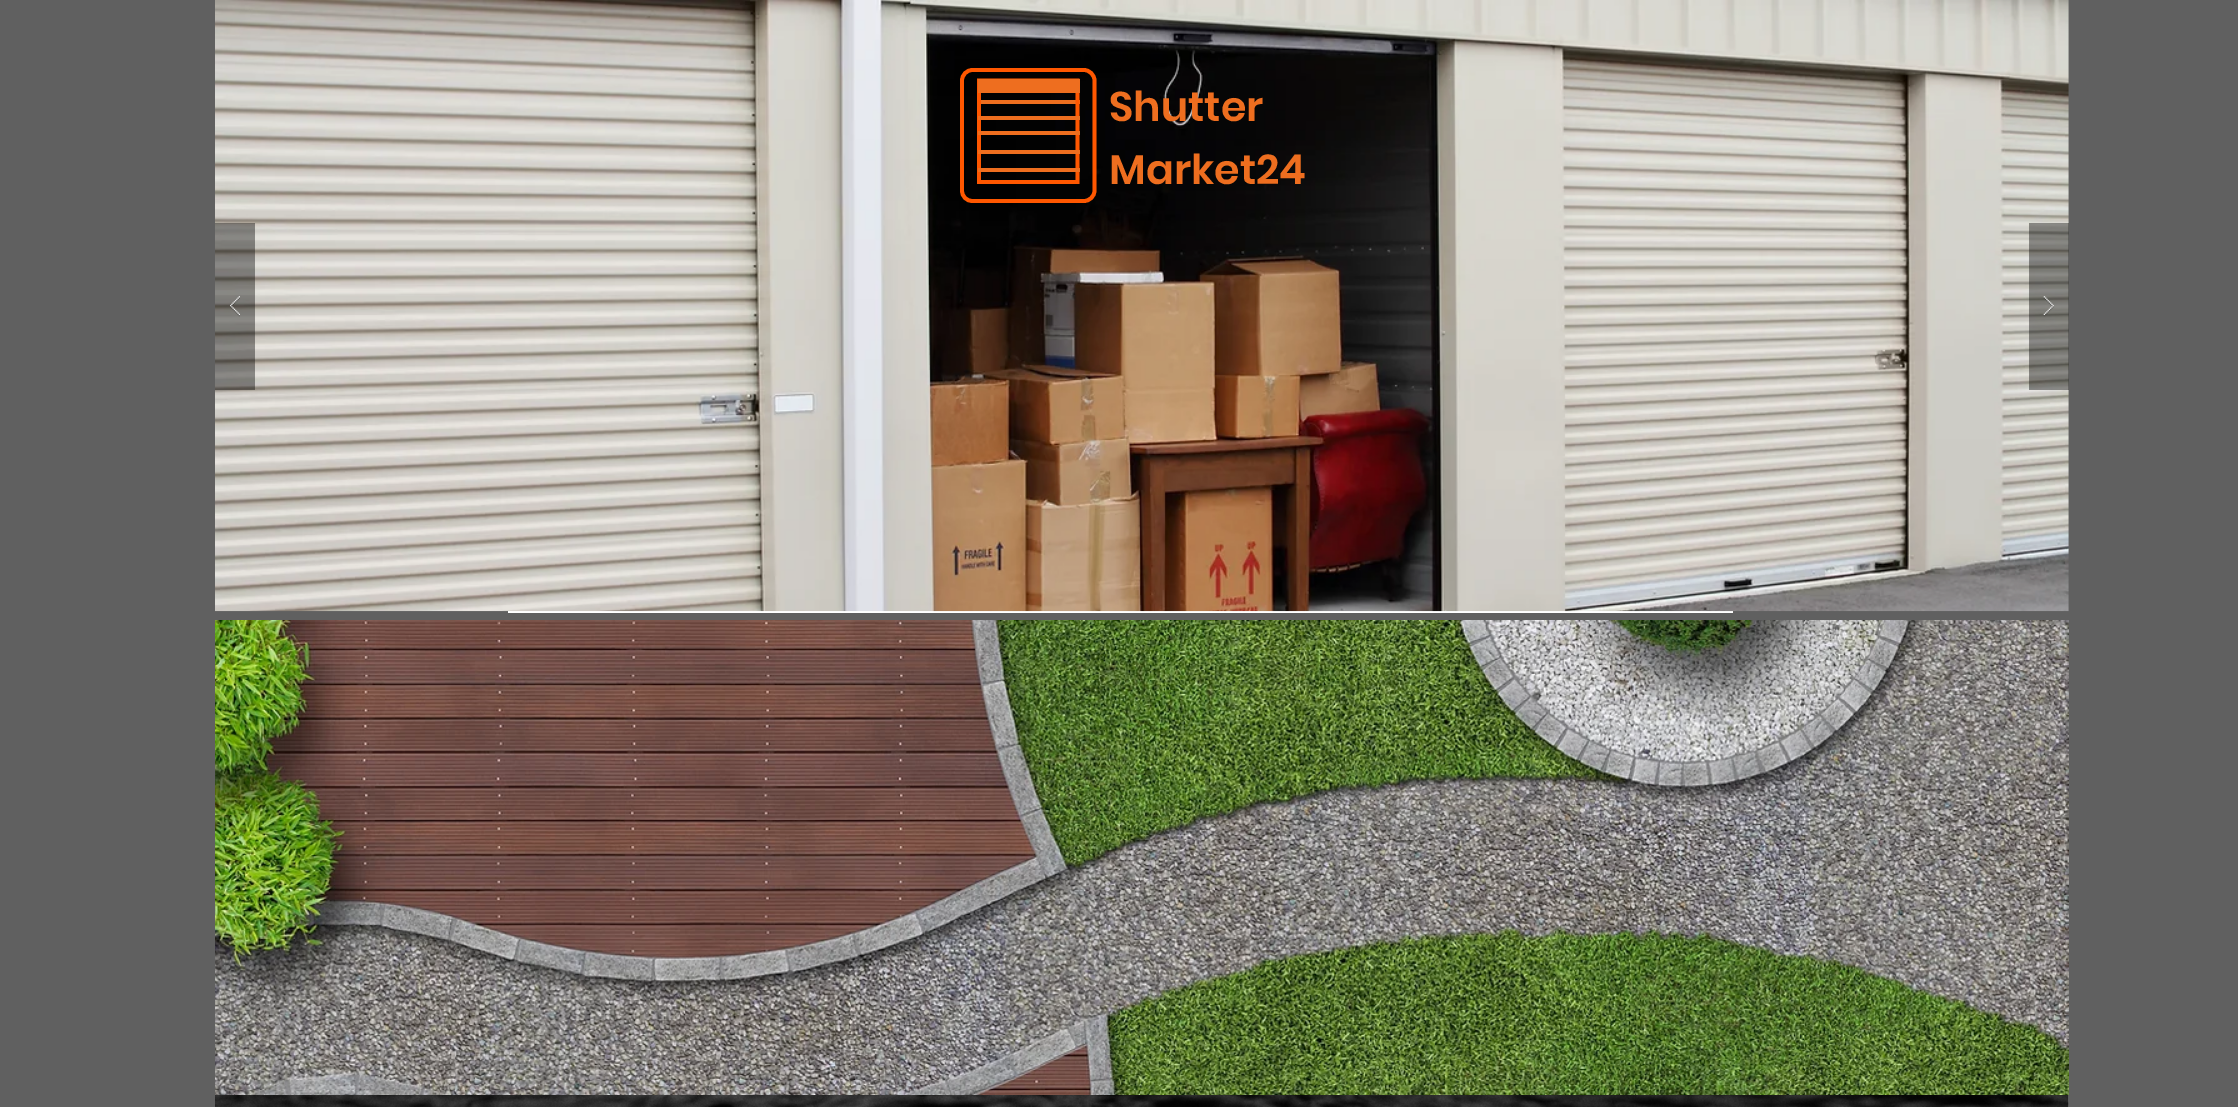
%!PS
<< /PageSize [2238 1107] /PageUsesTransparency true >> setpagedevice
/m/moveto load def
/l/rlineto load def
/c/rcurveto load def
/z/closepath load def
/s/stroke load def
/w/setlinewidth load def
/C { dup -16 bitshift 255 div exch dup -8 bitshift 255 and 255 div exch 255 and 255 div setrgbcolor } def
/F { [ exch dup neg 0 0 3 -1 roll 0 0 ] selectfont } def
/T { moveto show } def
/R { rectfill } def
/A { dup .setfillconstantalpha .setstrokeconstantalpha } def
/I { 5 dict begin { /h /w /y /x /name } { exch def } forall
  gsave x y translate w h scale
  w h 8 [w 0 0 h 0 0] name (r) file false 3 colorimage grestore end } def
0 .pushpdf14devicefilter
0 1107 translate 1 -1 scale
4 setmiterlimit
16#606060 C
0 0 2238 1107 R
16#FFFFFF C
508 611 1225 2 R
(1.rgb) 215 0 1854 612 I
0.4 A
16#000000 C
215 223 40 167 R
1 A
(2.rgb) 230 296 10 21 I
0.4 A
2029 223 40 167 R
1 A
(3.rgb) 2043 296 11 21 I
16#EE6E1F C
978 100 102 4 R
16#FF5700 C
3.8 w
1094.5 80.5 m 0 110 l 0 6 -5 10.5 -10.5 10.5 c -111.5 0 l -6 0 -10.5 -4.5 -10.5 -10.5 c 0 -110 l 0 -5.5 4.5 -10.5 10.5 -10.5 c 111.5 0 l 5.5 0 10.5 5 10.5 10.5 c z s
1077.5 80.5 m 0 101.5 l -98.5 0 l 0 -101.5 l z s
16#EE6E1F C
978 79 102 14 R
/Poppins-SemiBold 41.25 F
(Shutter) 1109 121 T
(Market24) 1109 184 T
978 116 102 4 R
978 131 102 4 R
978 150 102 4 R
978 168 102 4 R
(4.rgb) 215 620 1854 475 I
(5.rgb) 215 1095 1854 12 I
.poppdf14devicefilter showpage
